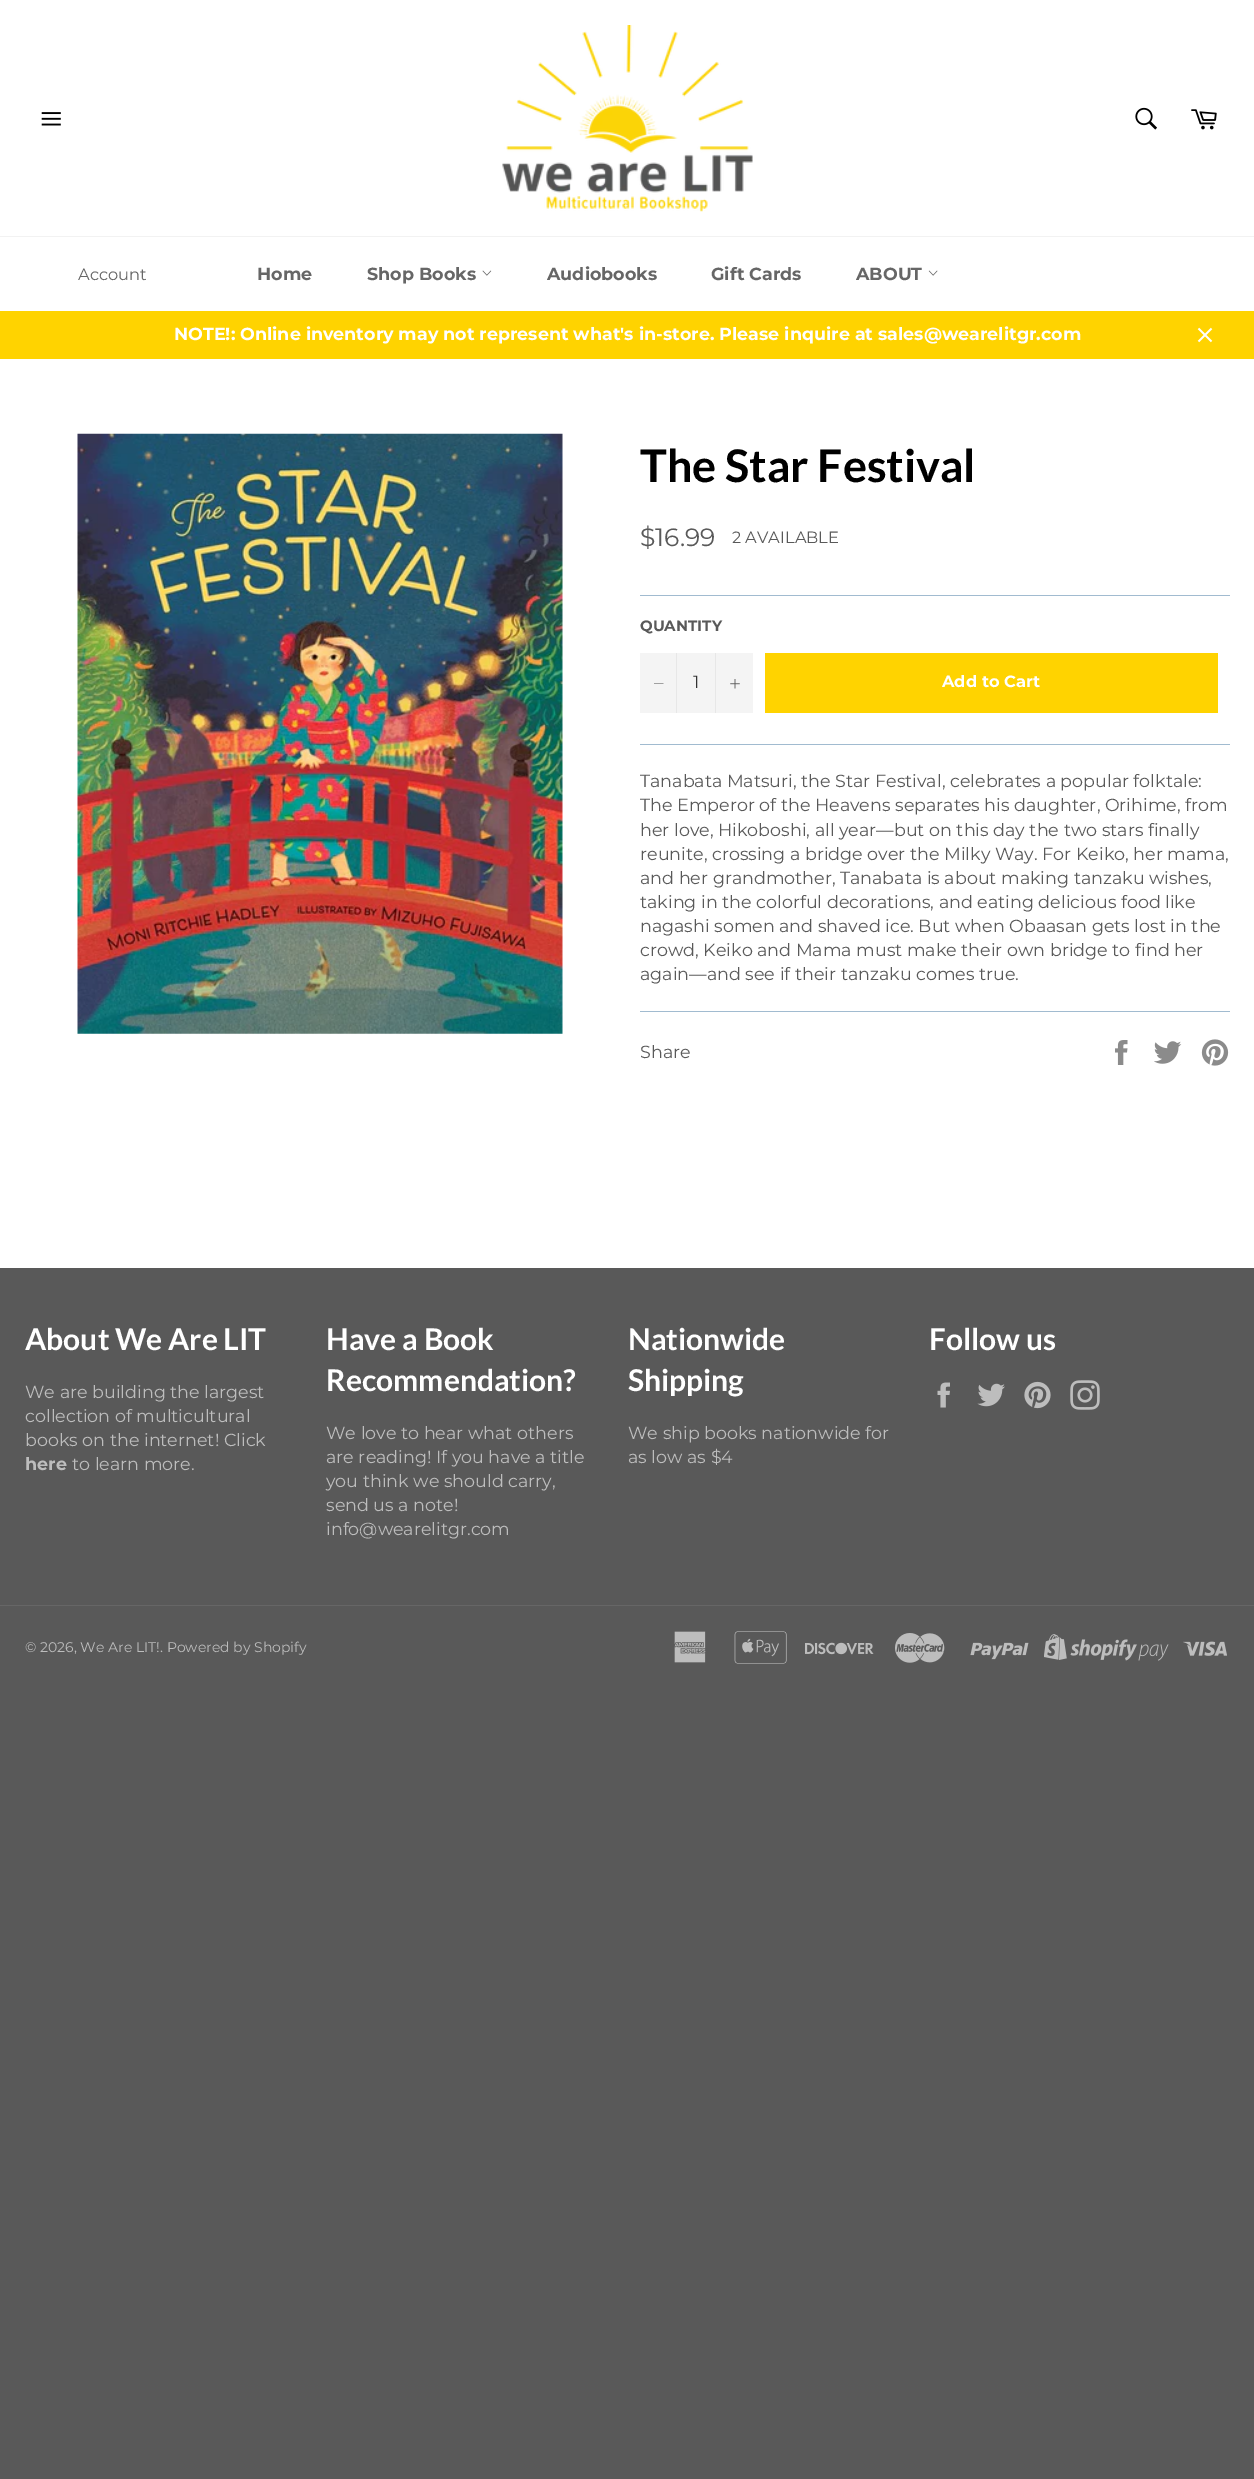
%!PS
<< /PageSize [1254 2479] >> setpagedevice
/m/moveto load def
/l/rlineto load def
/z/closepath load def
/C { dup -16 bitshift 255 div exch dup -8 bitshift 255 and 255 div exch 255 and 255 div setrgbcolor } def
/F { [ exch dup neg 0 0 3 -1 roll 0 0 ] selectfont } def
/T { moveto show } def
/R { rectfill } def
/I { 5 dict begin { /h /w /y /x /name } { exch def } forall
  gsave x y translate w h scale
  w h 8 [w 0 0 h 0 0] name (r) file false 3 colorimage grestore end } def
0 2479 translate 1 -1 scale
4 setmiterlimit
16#595959 C
0 0 1254 2479 R
16#FFFFFF C
0 0 1254 236 R
(1.rgb) 41 112 20 14 I
(2.rgb) 502 25 251 187 I
(3.rgb) 1135 107 22 23 I
(4.rgb) 1191 109 26 21 I
0 237 1254 74 R
16#F2F2F2 C
0 236 1254 1 R
/Montserrat-Regular 16.25 F
16#666666 C
(Account) 78 280 T
/Montserrat-Bold 17.5 F
(Home) 257 280 T
(Shop Books) 367 280 T
(5.rgb) 482 270 10 6 I
(Audiobooks) 547 280 T
(Gift Cards) 711 280 T
(ABOUT) 856 280 T
(6.rgb) 928 270 10 6 I
16#FFD300 C
0 311 1254 48 R
16#FFFFFF C
(NOTE!: Online inventory may not represent what's in-store. Please inquire at sales@wearelitgr.com) 174 340 T
(7.rgb) 1197 327 16 16 I
0 359 1254 909 R
(8.rgb) 77 433 486 601 I
/Lato-Bold 45 F
16#000000 C
(The Star Festival) 640 482 T
/Montserrat-Regular 25 F
16#595959 C
($16.99) 640 546 T
/Montserrat-Regular 16.25 F
(2 AVAILABLE) 732 543 T
16#A1BBD0 C
640 595 590 1 R
/Montserrat-Bold 15 F
16#595959 C
(QUANTITY) 640 631 T
16#F4F4F4 C
640 653 113 60 R
16#E7E7E7 C
676 653 1 60 R
16#595959 C
663.5 683.5 m 0 .5 l -9.5 0 l 0 -.5 l z eofill
/Montserrat-Regular 17.5 F
16#333333 C
(1) 693 688 T
16#E7E7E7 C
715 653 1 60 R
(9.rgb) 730 679 10 10 I
16#FFD300 C
765 653 453 60 R
/Montserrat-Bold 16.25 F
16#FFFFFF C
(Add to Cart) 942 687 T
16#A1BBD0 C
640 744 590 1 R
/Montserrat-Regular 17.5 F
16#595959 C
(Tanabata Matsuri, the Star Festival, celebrates a popular folktale:) 640 787 T
(The Emperor of the Heavens separates his daughter, Orihime, from) 640 811 T
(her love, Hikoboshi, all year—but on this day the two stars finally) 640 836 T
(reunite, crossing a bridge over the Milky Way. For Keiko, her mama,) 640 860 T
(and her grandmother, Tanabata is about making tanzaku wishes,) 640 884 T
(taking in the colorful decorations, and eating delicious food like) 640 908 T
(nagashi somen and shaved ice. But when Obaasan gets lost in the) 640 932 T
(crowd, Keiko and Mama must make their own bridge to find her) 640 956 T
(again—and see if their tanzaku comes true.) 640 980 T
16#A1BBD0 C
640 1011 590 1 R
16#595959 C
(Share) 640 1058 T
(10.rgb) 1115 1040 13 25 I
(11.rgb) 1154 1041 28 23 I
(12.rgb) 1201 1039 28 27 I
/Lato-Bold 30 F
16#FFFFFF C
(About We Are LIT) 25 1350 T
/Montserrat-Regular 17.5 F
16#BDBDBD C
(We are building the largest) 25 1398 T
(collection of multicultural) 25 1422 T
(books on the internet! Click) 25 1446 T
/Montserrat-Bold 17.5 F
(here) 25 1470 T
/Montserrat-Regular 17.5 F
(to learn more.) 72 1470 T
/Lato-Bold 30 F
16#FFFFFF C
(Have a Book) 326 1350 T
(Recommendation?) 326 1391 T
/Montserrat-Regular 17.5 F
16#BDBDBD C
(We love to hear what others) 326 1439 T
(are reading! If you have a title) 326 1463 T
(you think we should carry,) 326 1487 T
(send us a note!) 326 1511 T
(info@wearelitgr.com) 326 1535 T
/Lato-Bold 30 F
16#FFFFFF C
(Nationwide) 628 1350 T
(Shipping) 628 1391 T
/Montserrat-Regular 17.5 F
16#BDBDBD C
(We ship books nationwide for) 628 1439 T
(as low as $4) 628 1463 T
/Lato-Bold 30 F
16#FFFFFF C
(Follow us) 929 1350 T
(13.rgb) 937 1382 13 26 I
(14.rgb) 977 1383 28 24 I
(15.rgb) 1024 1381 27 28 I
(16.rgb) 1070 1380 30 30 I
16#666666 C
0 1605 1254 1 R
/Montserrat-Regular 14 F
16#BDBDBD C
(© 2026, We Are LIT!. Powered by Shopify) 25 1652 T
(17.rgb) 674 1631 32 32 I
(18.rgb) 734 1631 53 33 I
(19.rgb) 805 1642 69 13 I
(20.rgb) 895 1633 50 30 I
(21.rgb) 970 1642 59 18 I
(22.rgb) 1044 1634 125 27 I
(23.rgb) 1183 1641 44 15 I
showpage
